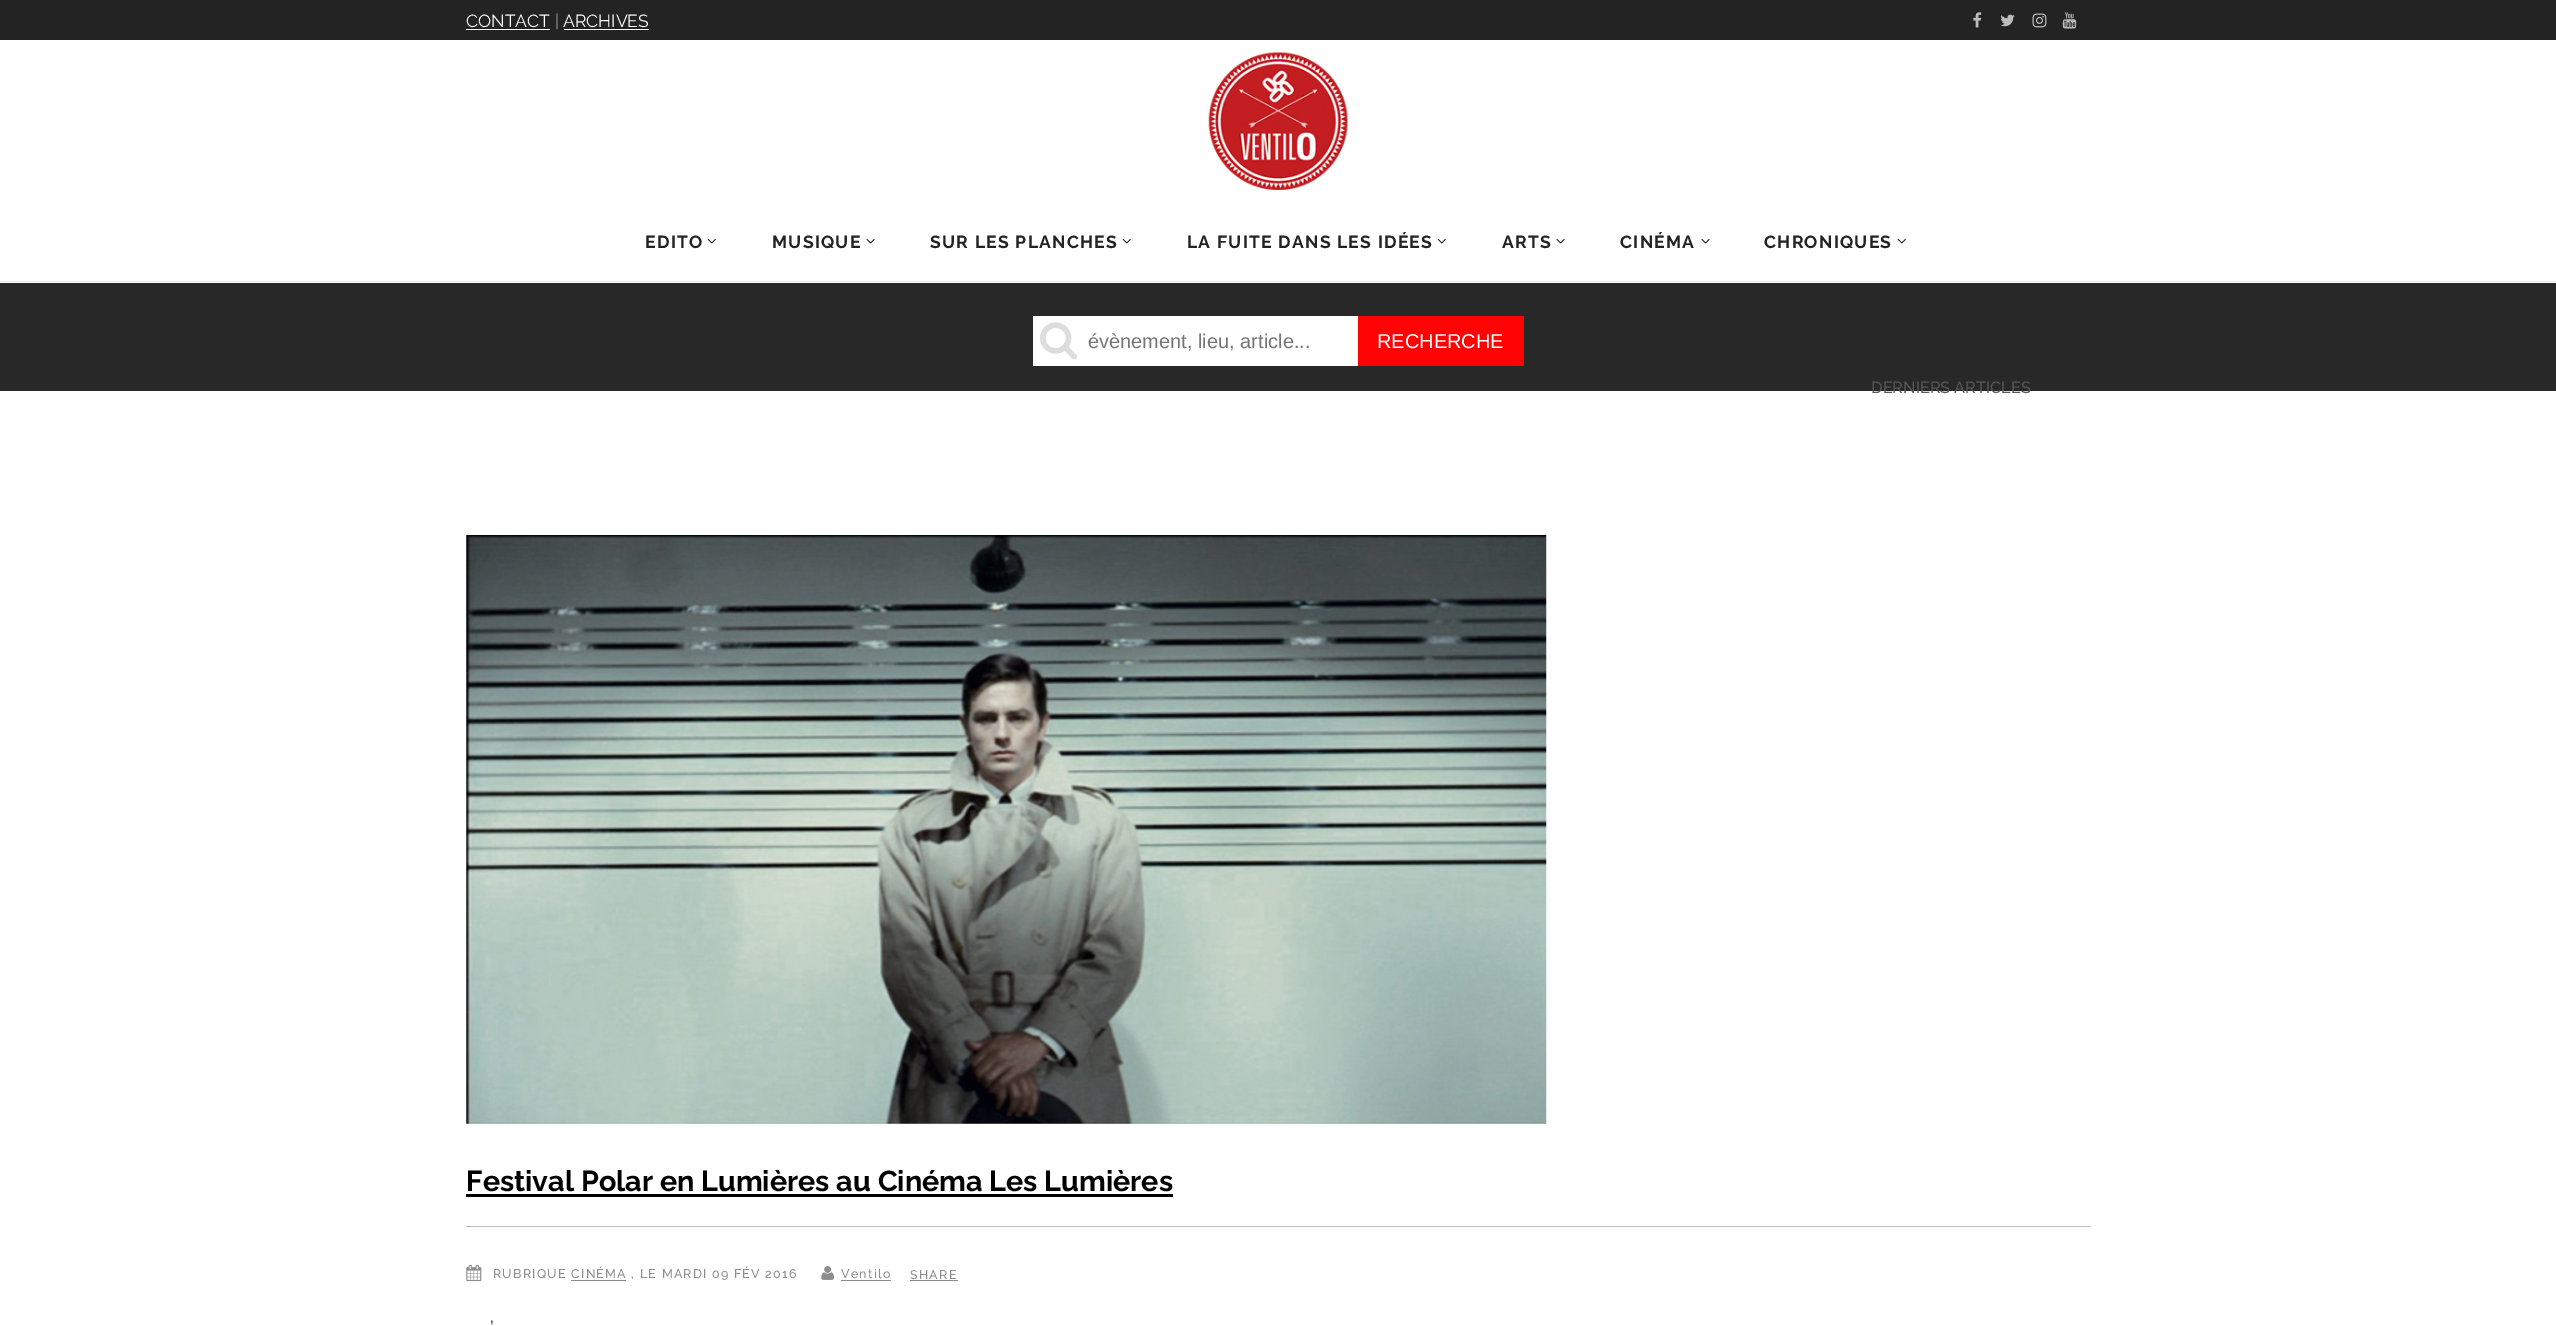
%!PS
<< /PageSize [2556 1326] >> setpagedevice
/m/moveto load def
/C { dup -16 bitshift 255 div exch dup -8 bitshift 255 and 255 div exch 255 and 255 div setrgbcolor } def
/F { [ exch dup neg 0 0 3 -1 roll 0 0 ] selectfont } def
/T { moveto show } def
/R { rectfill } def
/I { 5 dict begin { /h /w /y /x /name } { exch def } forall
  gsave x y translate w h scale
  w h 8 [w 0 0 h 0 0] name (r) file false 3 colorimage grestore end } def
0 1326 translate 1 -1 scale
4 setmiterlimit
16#FFFFFF C
0 0 2556 1326 R
16#232323 C
0 0 2556 40 R
/Raleway-Regular 17.5 F
16#FFFFFF C
(CONTACT) 466 27 T
466 29 84 1 R
16#999999 C
(|) 555 27 T
16#FFFFFF C
(ARCHIVES) 563 27 T
564 29 85 1 R
(1.rgb) 1973 12 9 16 I
(2.rgb) 2000 14 15 13 I
(3.rgb) 2032 13 15 15 I
(4.rgb) 2062 12 15 17 I
16#E5E5E5 C
0 281 2556 1 R
(5.rgb) 1208 52 140 138 I
/Raleway-Bold 17.5 F
16#232323 C
645 248 m 1.25 0 (EDITO) ashow
(6.rgb) 707 238 9 6 I
772 248 m 1.25 0 (MUSIQUE) ashow
(7.rgb) 866 238 9 6 I
930 248 m 1.25 0 (SUR LES PLANCHES) ashow
(6.rgb) 1122 238 9 6 I
1187 248 m 1.25 0 (LA FUITE DANS LES IDÉES) ashow
(6.rgb) 1437 238 9 6 I
1502 248 m 1.25 0 (ARTS) ashow
(7.rgb) 1556 238 9 6 I
1620 248 m 1.25 0 (CINÉMA) ashow
(7.rgb) 1701 238 9 6 I
1764 248 m 1.25 0 (CHRONIQUES) ashow
(6.rgb) 1897 238 9 6 I
16#282828 C
0 283 2556 108 R
/Raleway-Medium 16.25 F
16#575757 C
(DERNIERS ARTICLES) 1871 393 T
16#FFFFFF C
1033 316 325 50 R
(8.rgb) 1040 322 37 38 I
/LiberationSans-Regular 20 F
16#757575 C
(évènement, lieu, article...) 1088 348 T
16#FF0204 C
1358 316 166 50 R
16#FFFFFF C
(RECHERCHE) 1377 348 T
(9.rgb) 466 535 1081 589 I
/Raleway-Bold 28.75 F
16#000000 C
(Festival Polar en Lumières au Cinéma Les Lumières) 466 1191 T
466 1194 707 3 R
16#BCC0C4 C
466 1226 1625 1 R
(10.rgb) 466 1264 16 18 I
/Raleway-Medium 12.5 F
16#8D8D8D C
493 1278 m 1.25 0 (RUBRIQUE CINÉMA , LE MARDI 09 FÉV 2016) ashow
571 1280 55 1 R
(11.rgb) 821 1266 13 14 I
841 1278 m 1.25 0 (Ventilo) ashow
841 1280 50 1 R
910 1279 m 1.25 0 (SHARE) ashow
910 1280 48 1 R
/Raleway-Regular 20 F
16#232323 C
(’) 490 1335 T
showpage
